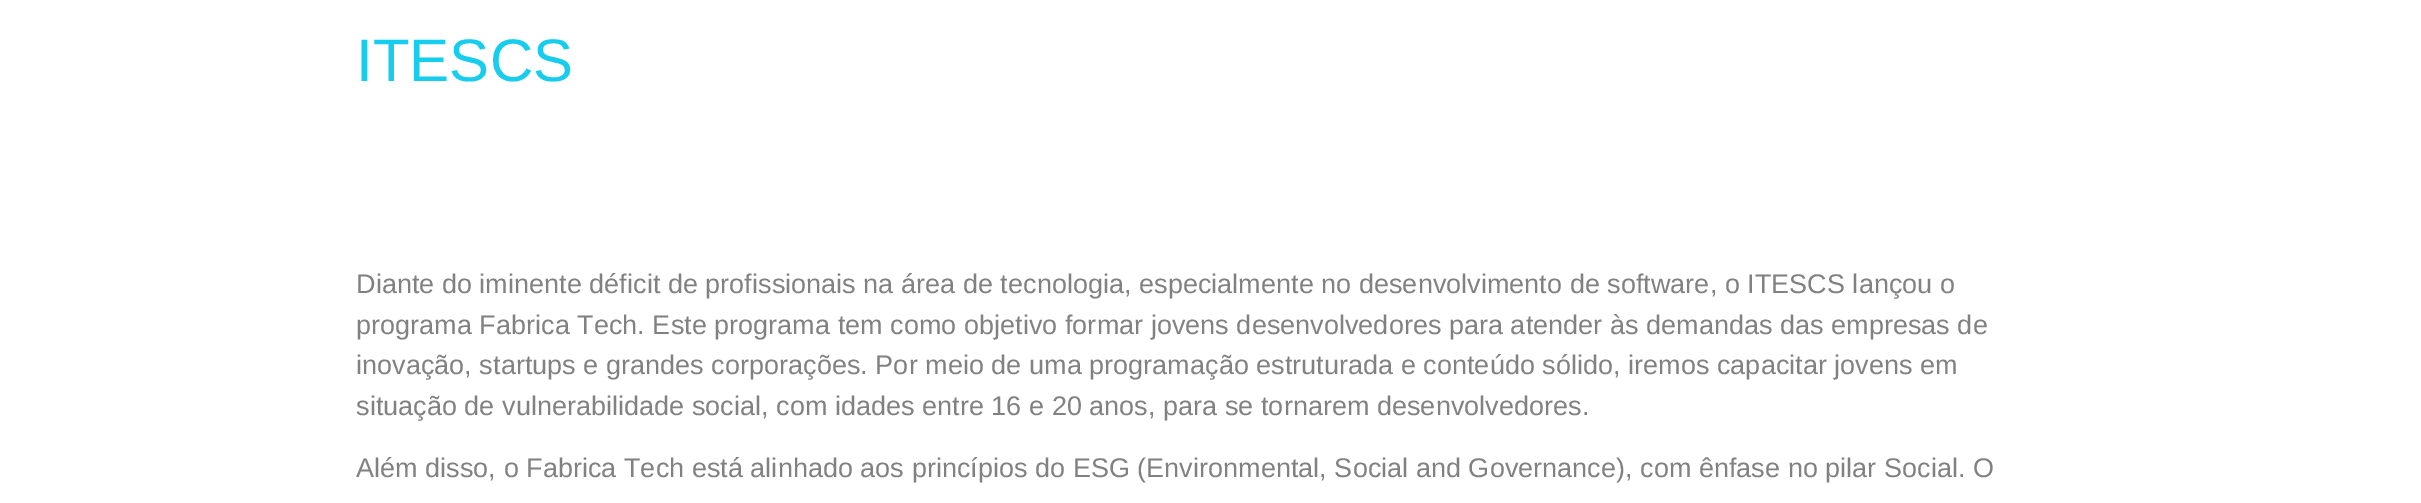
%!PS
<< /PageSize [2421 503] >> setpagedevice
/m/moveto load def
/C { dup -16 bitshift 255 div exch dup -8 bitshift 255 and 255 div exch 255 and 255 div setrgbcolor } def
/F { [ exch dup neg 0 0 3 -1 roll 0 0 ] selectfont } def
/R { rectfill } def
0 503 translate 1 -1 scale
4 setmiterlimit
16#FFFFFF C
0 0 2421 503 R
/LiberationSans-Regular 60 F
16#16CDED C
356 81 m .04 0 (ITESCS) ashow
/LiberationSans-Regular 27 F
16#818181 C
356 293 m .04 0 (Diante do iminente déficit de profissionais na área de tecnologia, especialmente no desenvolvimento de software, o ITESCS lançou o) ashow
356 334 m .04 0 (programa Fabrica Tech. Este programa tem como objetivo formar jovens desenvolvedores para atender às demandas das empresas de) ashow
356 374 m .04 0 (inovação, startups e grandes corporações. Por meio de uma programação estruturada e conteúdo sólido, iremos capacitar jovens em) ashow
356 415 m .04 0 (situação de vulnerabilidade social, com idades entre 16 e 20 anos, para se tornarem desenvolvedores.) ashow
356 477 m .04 0 (Além disso, o Fabrica Tech está alinhado aos princípios do ESG \(Environmental, Social and Governance\), com ênfase no pilar Social. O) ashow
showpage
